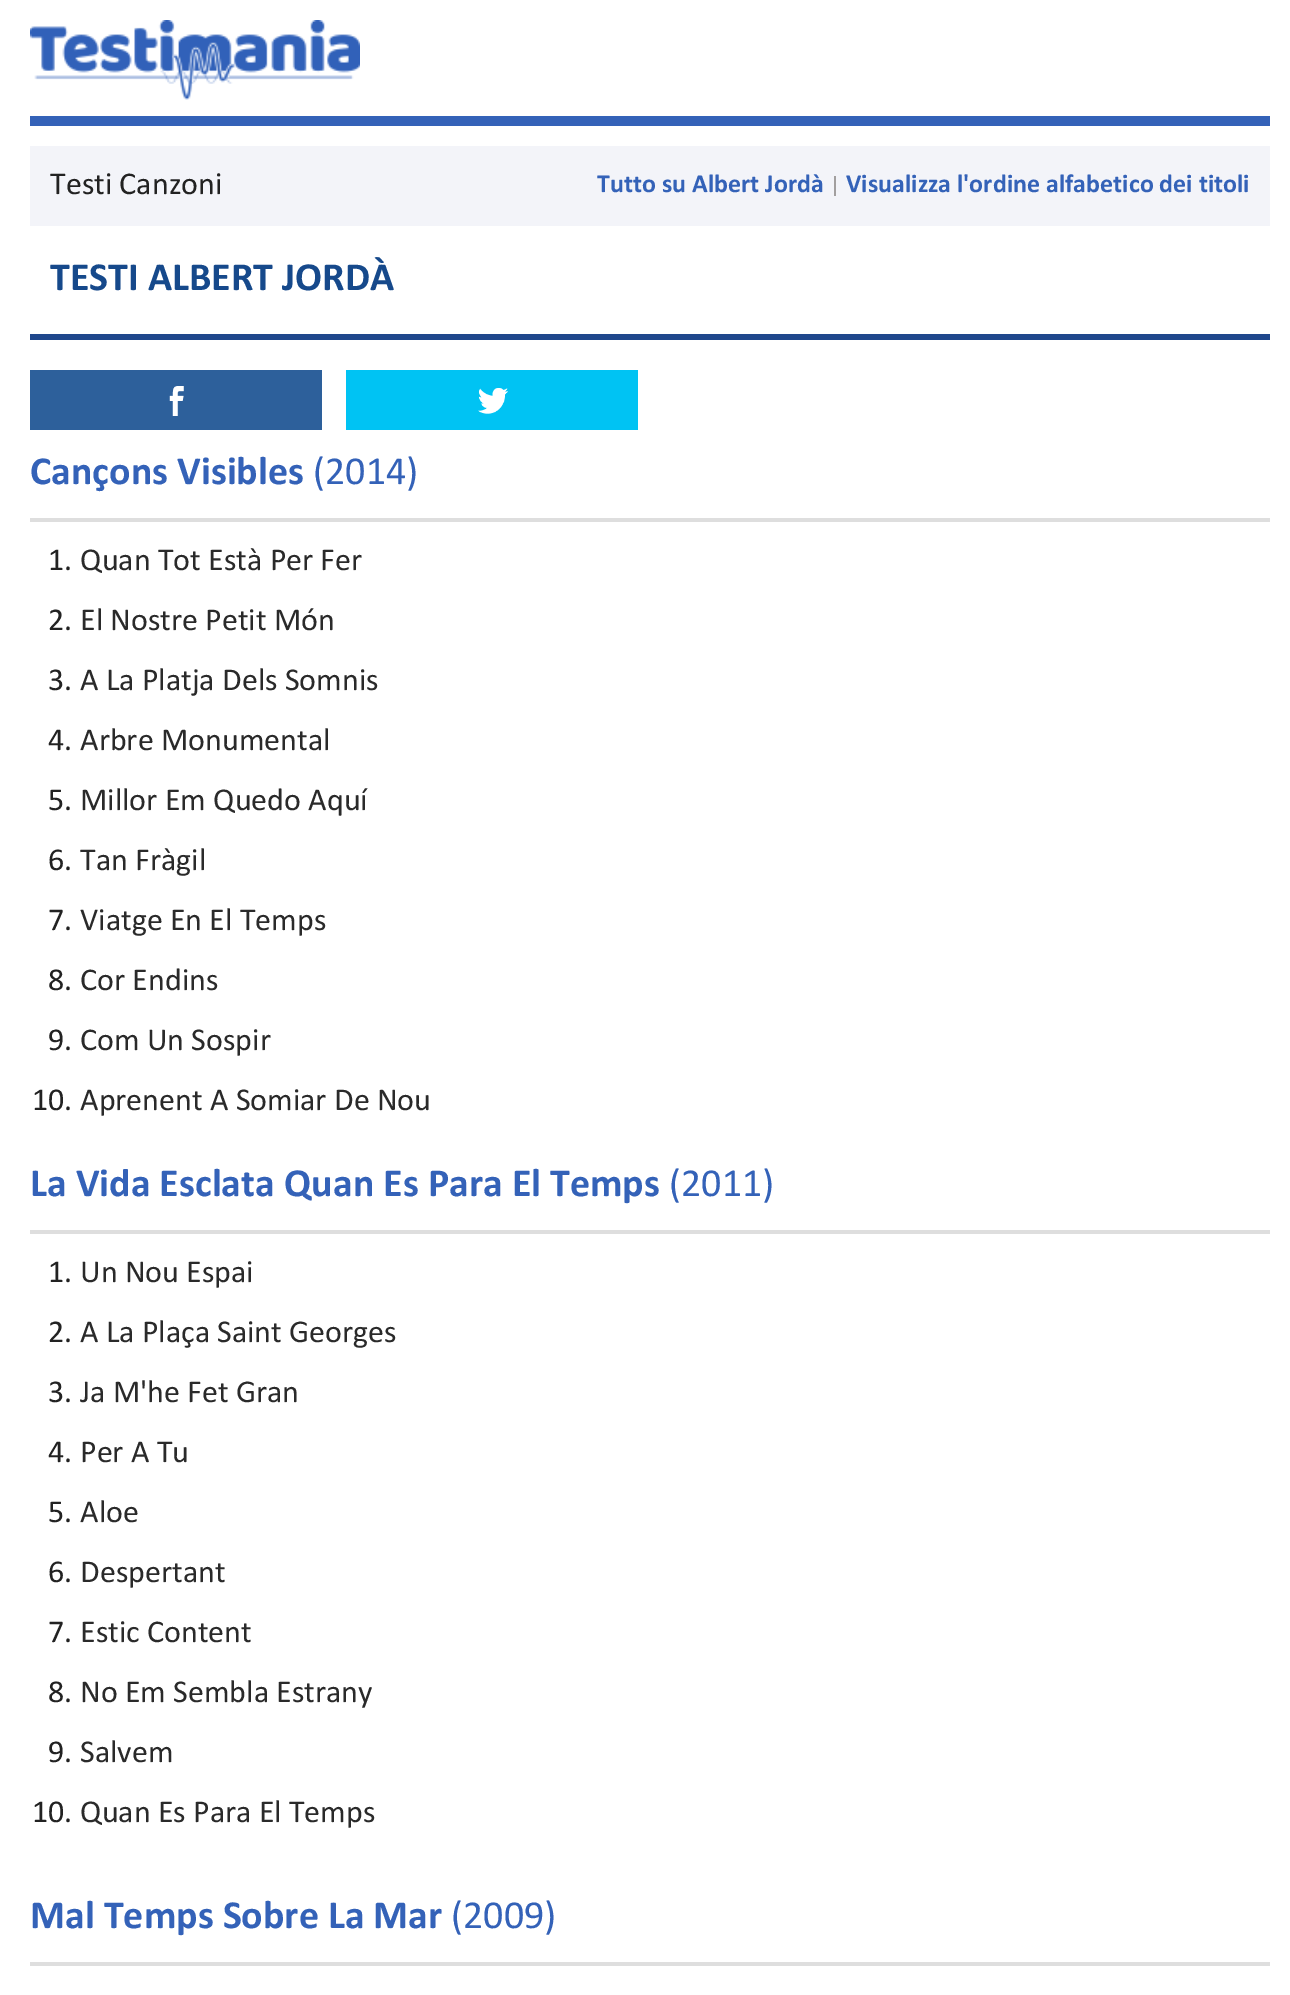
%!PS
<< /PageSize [1290 1995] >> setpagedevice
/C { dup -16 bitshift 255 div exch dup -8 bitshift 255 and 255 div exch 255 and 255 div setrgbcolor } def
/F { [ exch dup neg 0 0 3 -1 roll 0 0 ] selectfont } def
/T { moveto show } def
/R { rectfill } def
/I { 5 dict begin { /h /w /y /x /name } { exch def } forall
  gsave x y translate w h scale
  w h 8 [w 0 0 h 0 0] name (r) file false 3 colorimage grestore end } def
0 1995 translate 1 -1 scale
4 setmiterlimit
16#FFFFFF C
0 0 1290 1995 R
16#3462B8 C
30 116 1240 10 R
(1.rgb) 30 20 330 80 I
16#F3F4F9 C
30 146 1240 80 R
/Calibri-Regular 32 F
16#222222 C
(Testi Canzoni) 50 194 T
/Calibri-Bold 26 F
16#3462B8 C
(Tutto su Albert Jordà) 597 192 T
16#A29F9F C
834 176 2 20 R
16#3462B8 C
(Visualizza l'ordine alfabetico dei titoli) 846 192 T
16#1F478C C
30 334 1240 6 R
/Calibri-Bold 40 F
16#16498B C
(TESTI ALBERT JORDÀ) 50 290 T
16#2D609B C
30 370 292 60 R
(2.rgb) 169 386 15 30 I
16#00C3F3 C
346 370 292 60 R
(3.rgb) 478 388 30 26 I
16#DEDEDE C
30 518 1240 4 R
16#3462B8 C
(Cançons Visibles) 30 484 T
/Calibri-Regular 40 F
(\(2014\)) 313 484 T
/Calibri-Regular 32 F
16#222222 C
(1.) 48 570 T
16#2A2A2A C
(Quan Tot Està Per Fer) 80 570 T
16#222222 C
(2.) 48 630 T
16#2A2A2A C
(El Nostre Petit Món) 80 630 T
16#222222 C
(3.) 48 690 T
16#2A2A2A C
(A La Platja Dels Somnis) 80 690 T
16#222222 C
(4.) 48 750 T
16#2A2A2A C
(Arbre Monumental) 80 750 T
16#222222 C
(5.) 48 810 T
16#2A2A2A C
(Millor Em Quedo Aquí) 80 810 T
16#222222 C
(6.) 48 870 T
16#2A2A2A C
(Tan Fràgil) 80 870 T
16#222222 C
(7.) 48 930 T
16#2A2A2A C
(Viatge En El Temps) 80 930 T
16#222222 C
(8.) 48 990 T
16#2A2A2A C
(Cor Endins) 80 990 T
16#222222 C
(9.) 48 1050 T
16#2A2A2A C
(Com Un Sospir) 80 1050 T
16#222222 C
(10.) 32 1110 T
16#2A2A2A C
(Aprenent A Somiar De Nou) 80 1110 T
16#DEDEDE C
30 1230 1240 4 R
/Calibri-Bold 40 F
16#3462B8 C
(La Vida Esclata Quan Es Para El Temps) 30 1196 T
/Calibri-Regular 40 F
(\(2011\)) 669 1196 T
/Calibri-Regular 32 F
16#222222 C
(1.) 48 1282 T
16#2A2A2A C
(Un Nou Espai) 80 1282 T
16#222222 C
(2.) 48 1342 T
16#2A2A2A C
(A La Plaça Saint Georges) 80 1342 T
16#222222 C
(3.) 48 1402 T
16#2A2A2A C
(Ja M'he Fet Gran) 80 1402 T
16#222222 C
(4.) 48 1462 T
16#2A2A2A C
(Per A Tu) 80 1462 T
16#222222 C
(5.) 48 1522 T
16#2A2A2A C
(Aloe) 80 1522 T
16#222222 C
(6.) 48 1582 T
16#2A2A2A C
(Despertant) 80 1582 T
16#222222 C
(7.) 48 1642 T
16#2A2A2A C
(Estic Content) 80 1642 T
16#222222 C
(8.) 48 1702 T
16#2A2A2A C
(No Em Sembla Estrany) 80 1702 T
16#222222 C
(9.) 48 1762 T
16#2A2A2A C
(Salvem) 80 1762 T
16#222222 C
(10.) 32 1822 T
16#2A2A2A C
(Quan Es Para El Temps) 80 1822 T
16#DEDEDE C
30 1962 1240 4 R
/Calibri-Bold 40 F
16#3462B8 C
(Mal Temps Sobre La Mar) 30 1928 T
/Calibri-Regular 40 F
(\(2009\)) 451 1928 T
showpage
